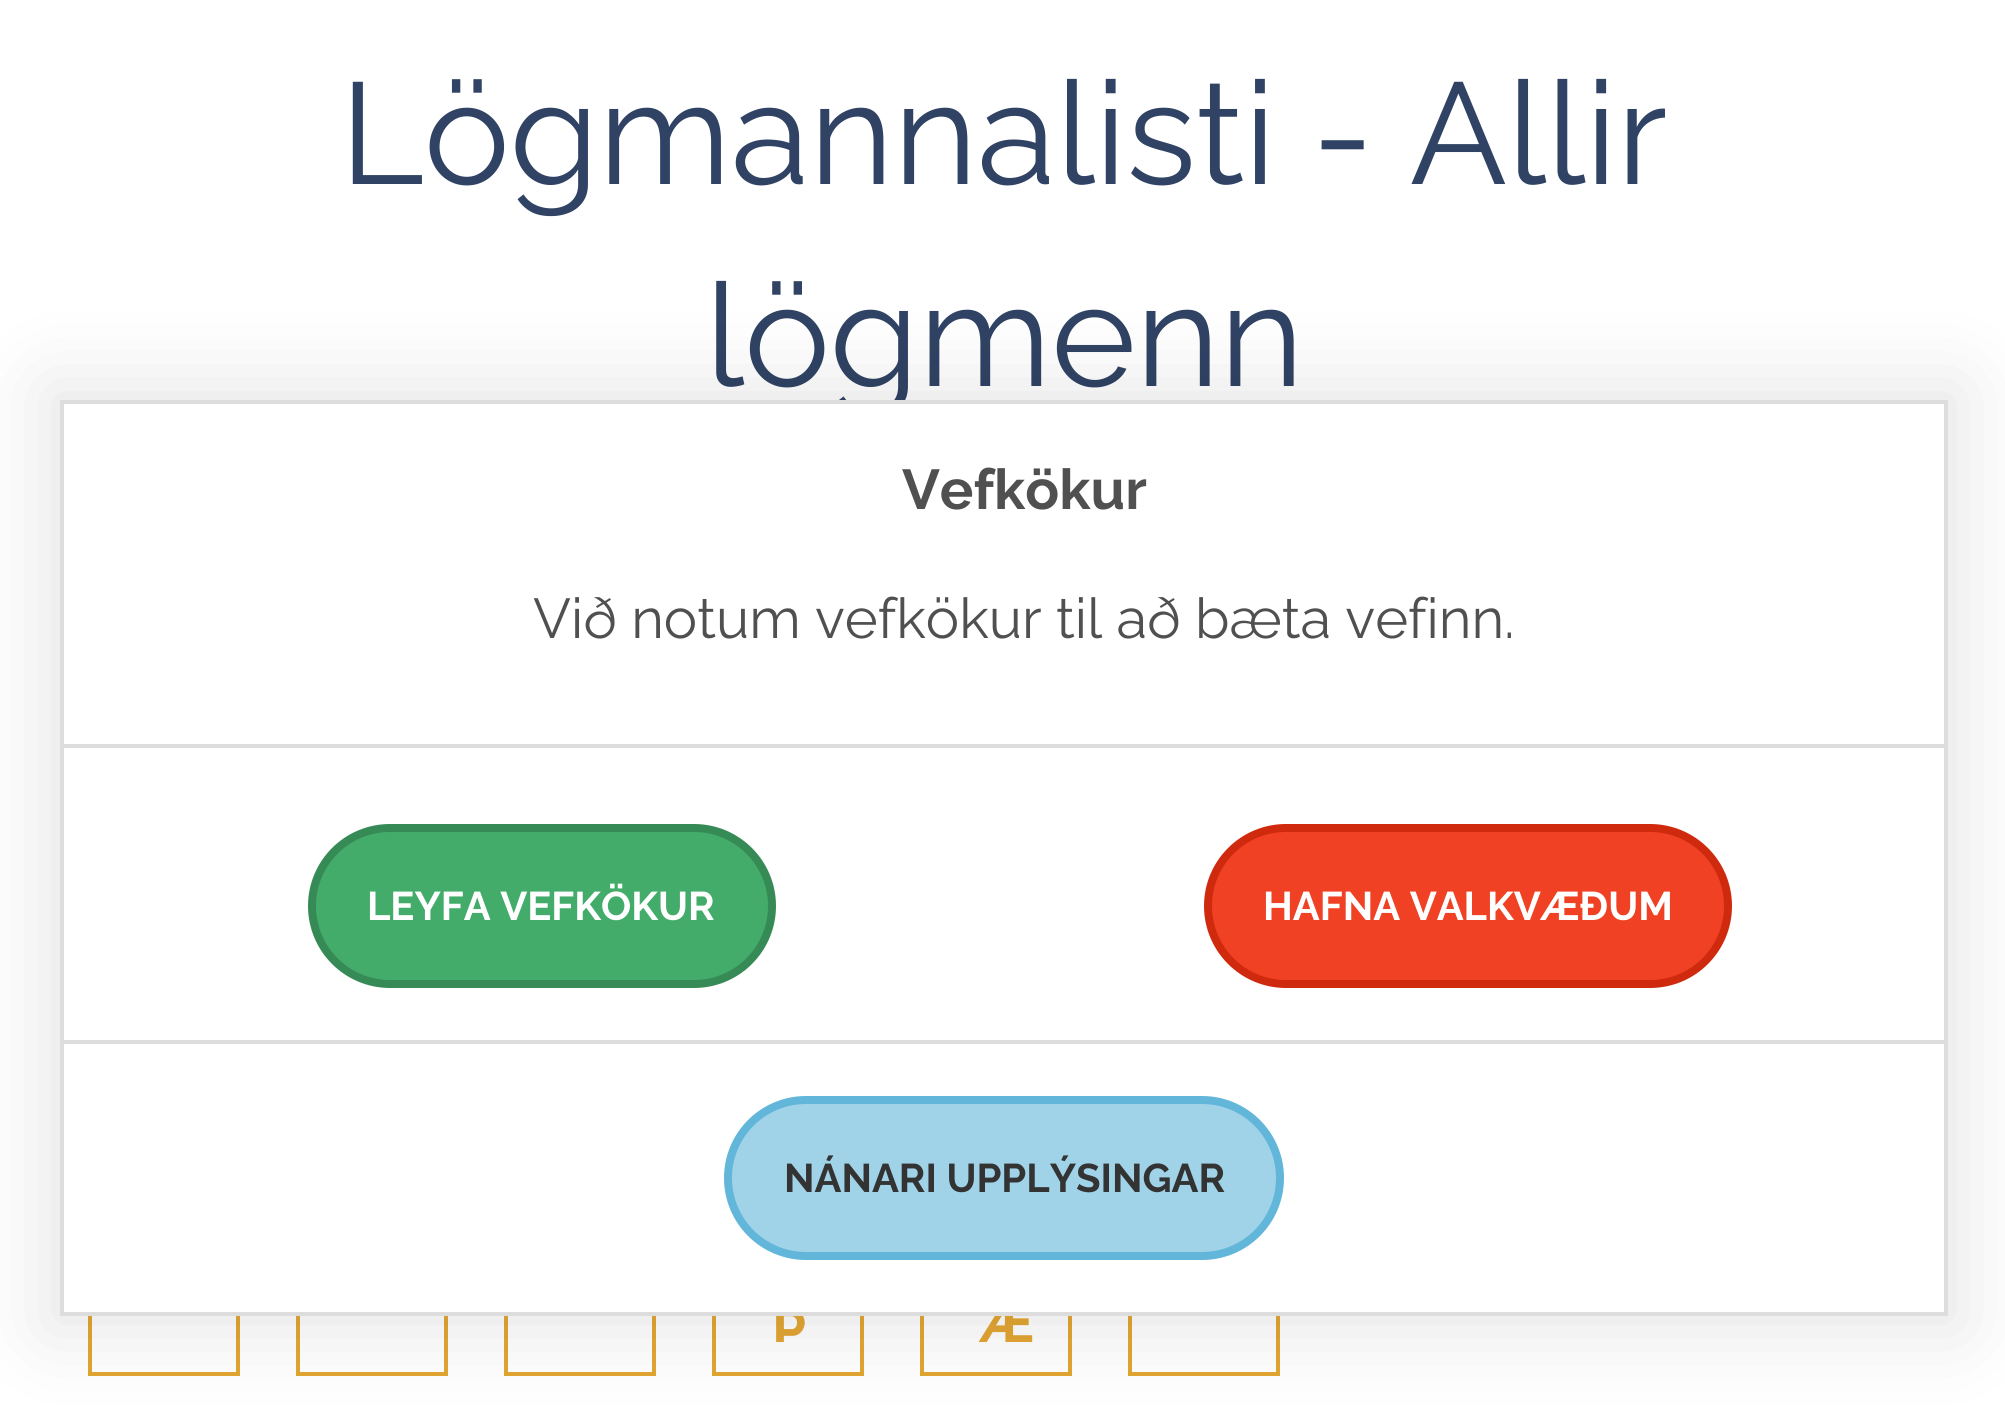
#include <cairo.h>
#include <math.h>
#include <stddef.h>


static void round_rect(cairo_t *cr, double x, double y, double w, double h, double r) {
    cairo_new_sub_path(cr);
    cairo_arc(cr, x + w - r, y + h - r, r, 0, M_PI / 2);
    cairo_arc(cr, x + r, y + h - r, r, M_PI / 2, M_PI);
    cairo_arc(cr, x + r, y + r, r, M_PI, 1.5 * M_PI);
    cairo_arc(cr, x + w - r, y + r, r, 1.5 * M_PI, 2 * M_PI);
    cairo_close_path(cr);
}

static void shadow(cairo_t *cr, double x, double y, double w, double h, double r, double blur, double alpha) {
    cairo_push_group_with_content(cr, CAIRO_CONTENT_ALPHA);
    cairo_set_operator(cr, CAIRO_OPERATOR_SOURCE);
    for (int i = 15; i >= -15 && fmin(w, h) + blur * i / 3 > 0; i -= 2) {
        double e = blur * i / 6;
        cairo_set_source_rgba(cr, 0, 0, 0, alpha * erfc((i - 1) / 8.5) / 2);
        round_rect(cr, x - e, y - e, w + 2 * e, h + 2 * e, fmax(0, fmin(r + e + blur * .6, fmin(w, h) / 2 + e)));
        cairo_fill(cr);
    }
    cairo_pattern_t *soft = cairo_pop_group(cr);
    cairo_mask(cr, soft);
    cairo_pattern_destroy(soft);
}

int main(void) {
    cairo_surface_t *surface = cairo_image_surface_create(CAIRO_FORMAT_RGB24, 2005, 1413);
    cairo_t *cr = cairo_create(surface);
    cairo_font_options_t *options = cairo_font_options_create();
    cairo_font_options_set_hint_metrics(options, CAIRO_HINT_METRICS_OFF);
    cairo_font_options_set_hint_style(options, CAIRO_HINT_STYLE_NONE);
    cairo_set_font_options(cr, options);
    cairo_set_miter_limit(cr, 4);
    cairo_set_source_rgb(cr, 1, 1, 1);
    cairo_paint(cr);
    cairo_select_font_face(cr, "Raleway", CAIRO_FONT_SLANT_NORMAL, CAIRO_FONT_WEIGHT_NORMAL);
    cairo_set_font_size(cr, 144);
    cairo_set_source_rgb(cr, 0.188, 0.263, 0.392);
    cairo_move_to(cr, 340, 184);
    cairo_show_text(cr, "Lögmannalisti - Allir");
    cairo_move_to(cr, 705, 386);
    cairo_show_text(cr, "lögmenn");
    cairo_rectangle(cr, 90, 1278, 148, 96);
    cairo_set_source_rgb(cr, 0.89, 0.651, 0.2);
    cairo_set_line_width(cr, 4);
    cairo_stroke(cr);
    cairo_rectangle(cr, 298, 1278, 148, 96);
    cairo_stroke(cr);
    cairo_rectangle(cr, 506, 1278, 148, 96);
    cairo_stroke(cr);
    cairo_rectangle(cr, 714, 1278, 148, 96);
    cairo_stroke(cr);
    cairo_select_font_face(cr, "Raleway", CAIRO_FONT_SLANT_NORMAL, CAIRO_FONT_WEIGHT_BOLD);
    cairo_set_font_size(cr, 56);
    cairo_move_to(cr, 772, 1342);
    cairo_show_text(cr, "Þ");
    cairo_rectangle(cr, 922, 1278, 148, 96);
    cairo_stroke(cr);
    cairo_move_to(cr, 980, 1342);
    cairo_show_text(cr, "Æ");
    cairo_rectangle(cr, 1130, 1278, 148, 96);
    cairo_stroke(cr);
    cairo_set_source_rgb(cr, 0, 0, 0);
    shadow(cr, 44, 384, 1920, 948, 0, 40, 0.1);
    cairo_set_source_rgb(cr, 1, 1, 1);
    cairo_rectangle(cr, 62, 402, 1884, 912);
    cairo_fill_preserve(cr);
    cairo_set_source_rgb(cr, 0.867, 0.867, 0.867);
    cairo_stroke(cr);
    cairo_set_source_rgb(cr, 0.314, 0.314, 0.314);
    cairo_move_to(cr, 902, 509);
    cairo_show_text(cr, "Vefkökur");
    cairo_select_font_face(cr, "Raleway", CAIRO_FONT_SLANT_NORMAL, CAIRO_FONT_WEIGHT_NORMAL);
    cairo_move_to(cr, 533, 638);
    cairo_show_text(cr, "Við notum vefkökur til að bæta vefinn.");
    cairo_set_source_rgb(cr, 0.867, 0.867, 0.867);
    cairo_rectangle(cr, 64, 744, 1880, 4);
    cairo_fill(cr);
    cairo_set_source_rgb(cr, 0.263, 0.675, 0.416);
    round_rect(cr, 312, 828, 460, 156, 78);
    cairo_fill_preserve(cr);
    cairo_set_source_rgb(cr, 0.212, 0.541, 0.333);
    cairo_set_line_width(cr, 8);
    cairo_stroke(cr);
    cairo_select_font_face(cr, "Raleway", CAIRO_FONT_SLANT_NORMAL, CAIRO_FONT_WEIGHT_BOLD);
    cairo_set_font_size(cr, 40);
    cairo_set_source_rgb(cr, 1, 1, 1);
    cairo_move_to(cr, 367, 920);
    cairo_show_text(cr, "LEYFA VEFKÖKUR");
    cairo_set_source_rgb(cr, 0.941, 0.255, 0.141);
    round_rect(cr, 1208, 828, 520, 156, 78);
    cairo_fill_preserve(cr);
    cairo_set_source_rgb(cr, 0.812, 0.165, 0.055);
    cairo_stroke(cr);
    cairo_set_source_rgb(cr, 1, 1, 1);
    cairo_move_to(cr, 1263, 920);
    cairo_show_text(cr, "HAFNA VALKVÆÐUM");
    cairo_set_source_rgb(cr, 0.867, 0.867, 0.867);
    cairo_rectangle(cr, 64, 1040, 1880, 4);
    cairo_fill(cr);
    cairo_set_source_rgb(cr, 0.627, 0.827, 0.91);
    round_rect(cr, 728, 1100, 552, 156, 78);
    cairo_fill_preserve(cr);
    cairo_set_source_rgb(cr, 0.38, 0.714, 0.851);
    cairo_stroke(cr);
    cairo_set_source_rgb(cr, 0.2, 0.2, 0.2);
    cairo_move_to(cr, 784, 1192);
    cairo_show_text(cr, "NÁNARI UPPLÝSINGAR");
    cairo_surface_write_to_png(surface, "page.png");
    cairo_font_options_destroy(options);
    cairo_destroy(cr);
    cairo_surface_destroy(surface);
    return 0;
}
